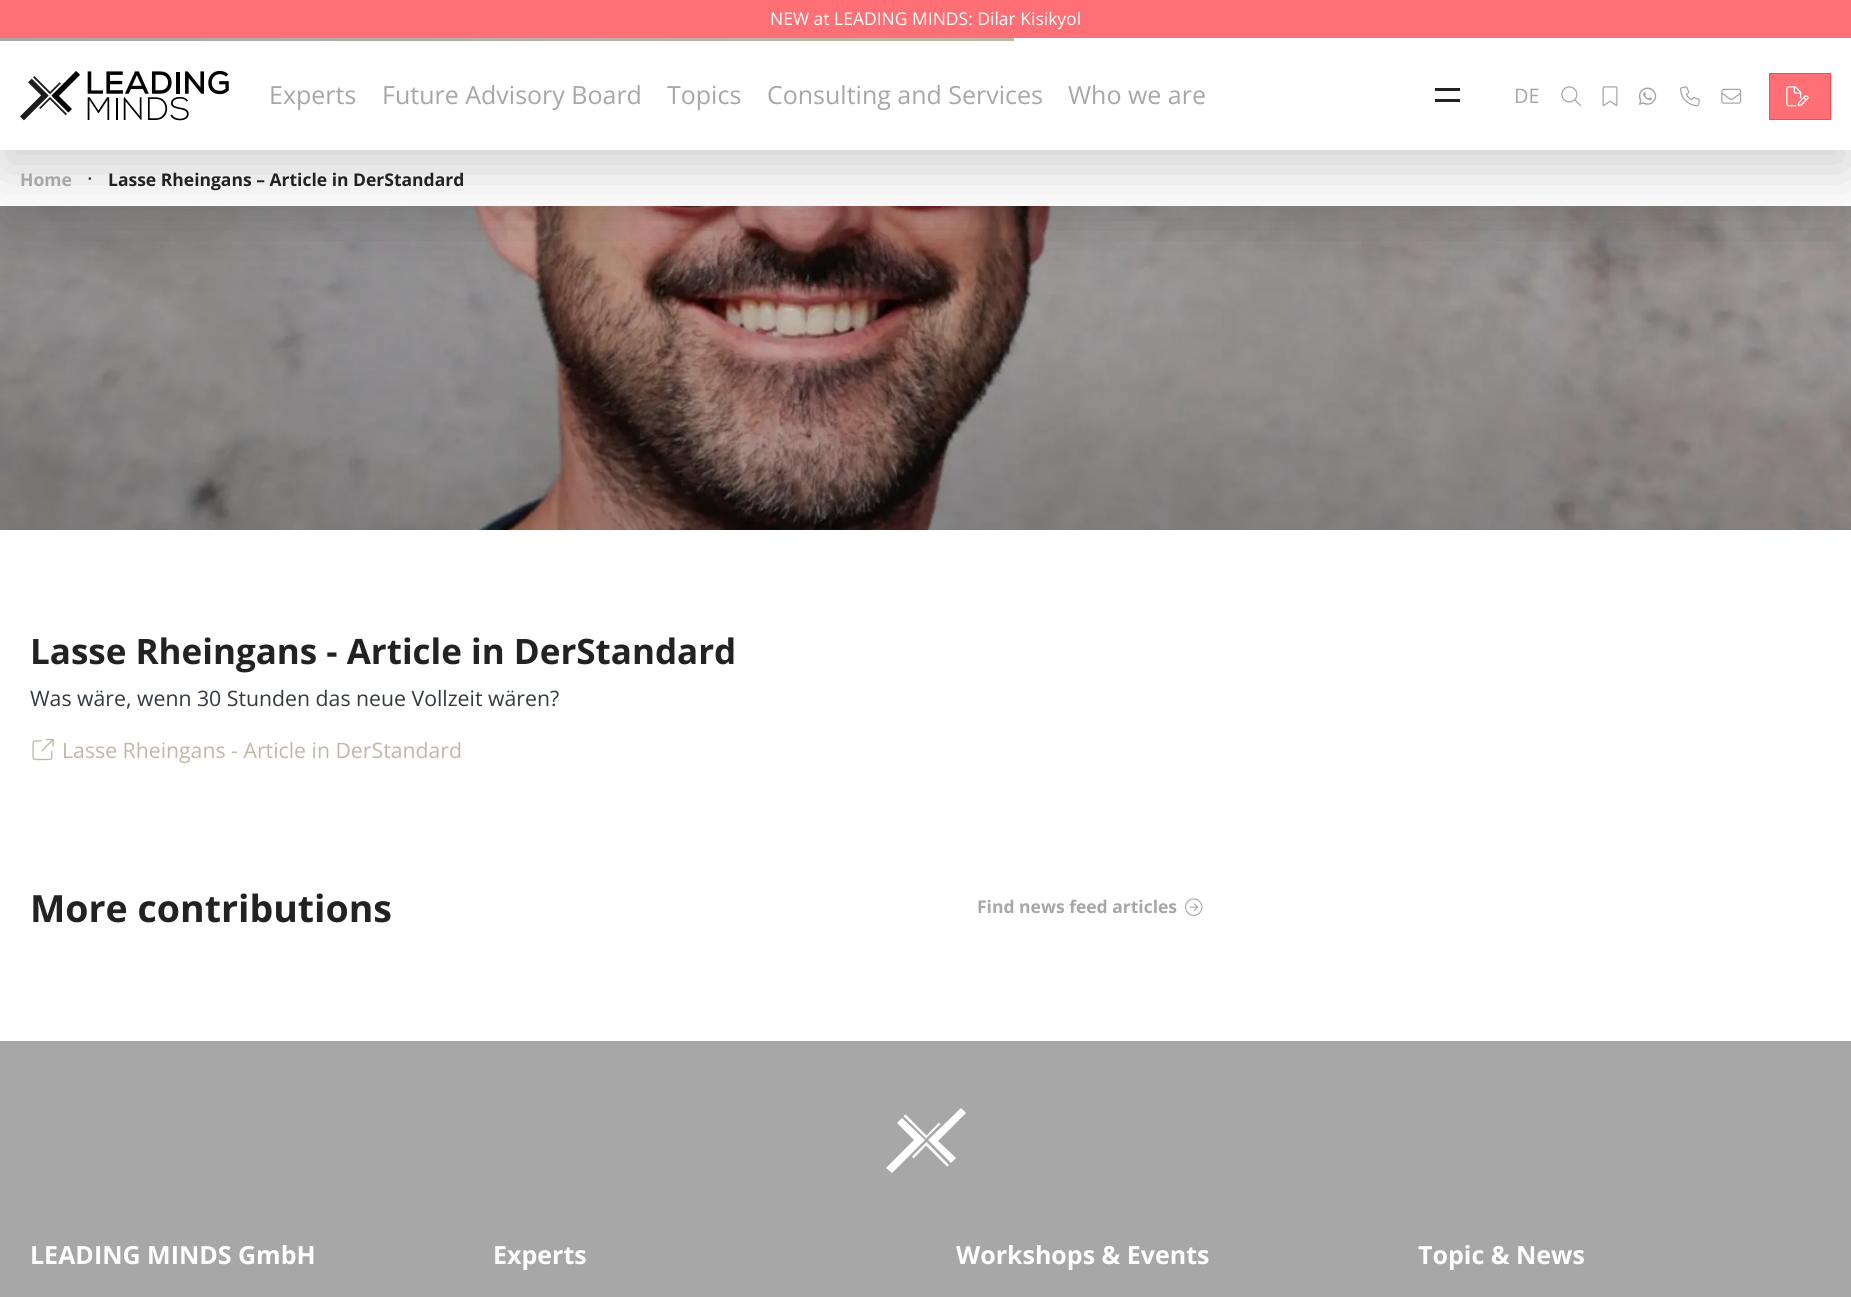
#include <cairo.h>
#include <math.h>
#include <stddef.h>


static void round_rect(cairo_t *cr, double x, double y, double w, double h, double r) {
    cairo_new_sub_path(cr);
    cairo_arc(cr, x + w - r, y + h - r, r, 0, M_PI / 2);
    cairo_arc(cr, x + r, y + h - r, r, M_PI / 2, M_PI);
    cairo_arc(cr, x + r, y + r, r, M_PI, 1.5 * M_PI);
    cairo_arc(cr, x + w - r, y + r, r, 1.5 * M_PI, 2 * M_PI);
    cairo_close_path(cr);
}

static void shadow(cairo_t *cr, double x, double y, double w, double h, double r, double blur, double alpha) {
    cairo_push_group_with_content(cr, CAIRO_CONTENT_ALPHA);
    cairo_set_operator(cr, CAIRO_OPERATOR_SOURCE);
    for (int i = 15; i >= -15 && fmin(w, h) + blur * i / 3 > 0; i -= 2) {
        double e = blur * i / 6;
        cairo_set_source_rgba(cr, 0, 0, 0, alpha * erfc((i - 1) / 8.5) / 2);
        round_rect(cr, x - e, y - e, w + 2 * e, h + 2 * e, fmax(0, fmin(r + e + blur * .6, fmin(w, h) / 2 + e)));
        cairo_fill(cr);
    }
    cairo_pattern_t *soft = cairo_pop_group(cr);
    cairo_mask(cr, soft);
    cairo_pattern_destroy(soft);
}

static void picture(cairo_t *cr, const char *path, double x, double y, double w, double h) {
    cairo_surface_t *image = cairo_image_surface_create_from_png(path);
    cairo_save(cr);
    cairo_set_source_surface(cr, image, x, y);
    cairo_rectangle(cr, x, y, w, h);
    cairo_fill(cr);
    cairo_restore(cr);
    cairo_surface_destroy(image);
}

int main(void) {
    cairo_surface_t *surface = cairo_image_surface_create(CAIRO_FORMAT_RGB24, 1851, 1297);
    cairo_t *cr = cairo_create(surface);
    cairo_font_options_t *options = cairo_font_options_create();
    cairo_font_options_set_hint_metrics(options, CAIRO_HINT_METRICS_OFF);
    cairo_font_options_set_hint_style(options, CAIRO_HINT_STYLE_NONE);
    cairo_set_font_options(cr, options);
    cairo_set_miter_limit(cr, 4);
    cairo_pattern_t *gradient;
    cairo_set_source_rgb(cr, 0.655, 0.655, 0.655);
    cairo_paint(cr);
    picture(cr, "img8.png", 0, 206, 1851, 324);
    cairo_set_source_rgb(cr, 0, 0, 0);
    shadow(cr, 0, 170, 1851, 56, 0, 30, 0.18);
    cairo_set_source_rgb(cr, 1, 1, 1);
    cairo_rectangle(cr, 0, 150, 1851, 56);
    cairo_fill(cr);
    cairo_set_source_rgb(cr, 0, 0, 0);
    shadow(cr, 0, 20, 1851, 150, 0, 30, 0.18);
    cairo_set_source_rgb(cr, 1, 1, 1);
    cairo_rectangle(cr, 0, 38, 1851, 112);
    cairo_fill(cr);
    cairo_set_source_rgb(cr, 0.996, 0.439, 0.459);
    cairo_rectangle(cr, 0, 0, 1851, 38);
    cairo_fill(cr);
    cairo_select_font_face(cr, "Open Sans", CAIRO_FONT_SLANT_NORMAL, CAIRO_FONT_WEIGHT_NORMAL);
    cairo_set_font_size(cr, 17.5);
    cairo_set_source_rgb(cr, 1, 1, 1);
    cairo_move_to(cr, 770, 25);
    cairo_show_text(cr, "NEW at LEADING MINDS: Dilar Kisikyol");
    gradient = cairo_pattern_create_linear(0, 39, 1014, 39);
    cairo_pattern_add_color_stop_rgba(gradient, 0, 0.655, 0.655, 0.655, 1);
    cairo_pattern_add_color_stop_rgba(gradient, 1, 0.761, 0.718, 0.651, 1);
    cairo_set_source(cr, gradient);
    cairo_pattern_destroy(gradient);
    cairo_rectangle(cr, 0, 38, 1014, 3);
    cairo_fill(cr);
    picture(cr, "img1.png", 20, 70, 209, 51);
    cairo_set_font_size(cr, 25);
    cairo_set_source_rgb(cr, 0.655, 0.655, 0.655);
    cairo_move_to(cr, 269, 104);
    cairo_show_text(cr, "Experts");
    cairo_move_to(cr, 382, 104);
    cairo_show_text(cr, "Future Advisory Board");
    cairo_move_to(cr, 667, 104);
    cairo_show_text(cr, "Topics");
    cairo_move_to(cr, 767, 104);
    cairo_show_text(cr, "Consulting and Services");
    cairo_move_to(cr, 1068, 104);
    cairo_show_text(cr, "Who we are");
    cairo_set_source_rgb(cr, 0.133, 0.133, 0.133);
    cairo_rectangle(cr, 1435, 88, 25, 3);
    cairo_fill(cr);
    cairo_rectangle(cr, 1435, 99, 25, 3);
    cairo_fill(cr);
    cairo_set_font_size(cr, 20);
    cairo_set_source_rgb(cr, 0.655, 0.655, 0.655);
    cairo_move_to(cr, 1514, 103);
    cairo_show_text(cr, "DE");
    picture(cr, "img2.png", 1561, 86, 21, 21);
    picture(cr, "img3.png", 1602, 86, 16, 21);
    picture(cr, "img4.png", 1638, 87, 19, 18);
    picture(cr, "img5.png", 1680, 86, 20, 21);
    picture(cr, "img6.png", 1721, 88, 21, 16);
    cairo_set_source_rgb(cr, 0.996, 0.439, 0.459);
    cairo_rectangle(cr, 1769.5, 73.5, 61, 46);
    cairo_fill_preserve(cr);
    cairo_set_source_rgb(cr, 0.996, 0.29, 0.314);
    cairo_set_line_width(cr, 1);
    cairo_stroke(cr);
    picture(cr, "img7.png", 1786, 86, 23, 21);
    cairo_select_font_face(cr, "Open Sans", CAIRO_FONT_SLANT_NORMAL, CAIRO_FONT_WEIGHT_BOLD);
    cairo_set_font_size(cr, 17.5);
    cairo_set_source_rgb(cr, 0.655, 0.655, 0.655);
    cairo_move_to(cr, 20, 186);
    cairo_show_text(cr, "Home");
    cairo_select_font_face(cr, "Open Sans", CAIRO_FONT_SLANT_NORMAL, CAIRO_FONT_WEIGHT_NORMAL);
    cairo_set_font_size(cr, 21.25);
    cairo_set_source_rgb(cr, 0.204, 0.227, 0.251);
    cairo_move_to(cr, 87, 186);
    cairo_show_text(cr, "·");
    cairo_select_font_face(cr, "Open Sans", CAIRO_FONT_SLANT_NORMAL, CAIRO_FONT_WEIGHT_BOLD);
    cairo_set_font_size(cr, 17.5);
    cairo_set_source_rgb(cr, 0.133, 0.133, 0.133);
    cairo_move_to(cr, 108, 186);
    cairo_show_text(cr, "Lasse Rheingans – Article in DerStandard");
    cairo_set_source_rgb(cr, 1, 1, 1);
    cairo_rectangle(cr, 0, 530, 1851, 511);
    cairo_fill(cr);
    cairo_set_font_size(cr, 35);
    cairo_set_source_rgb(cr, 0.133, 0.133, 0.133);
    cairo_move_to(cr, 30, 664);
    cairo_show_text(cr, "Lasse Rheingans - Article in DerStandard");
    cairo_select_font_face(cr, "Open Sans", CAIRO_FONT_SLANT_NORMAL, CAIRO_FONT_WEIGHT_NORMAL);
    cairo_set_font_size(cr, 21.25);
    cairo_set_source_rgb(cr, 0.204, 0.227, 0.251);
    cairo_move_to(cr, 30, 706);
    cairo_show_text(cr, "Was wäre, wenn 30 Stunden das neue Vollzeit wären?");
    picture(cr, "img9.png", 32, 738, 22, 23);
    cairo_set_source_rgb(cr, 0.761, 0.718, 0.651);
    cairo_move_to(cr, 62, 758);
    cairo_show_text(cr, "Lasse Rheingans - Article in DerStandard");
    cairo_select_font_face(cr, "Open Sans", CAIRO_FONT_SLANT_NORMAL, CAIRO_FONT_WEIGHT_BOLD);
    cairo_set_font_size(cr, 37.5);
    cairo_set_source_rgb(cr, 0.133, 0.133, 0.133);
    cairo_move_to(cr, 30, 922);
    cairo_show_text(cr, "More contributions");
    cairo_set_font_size(cr, 17.5);
    cairo_set_source_rgb(cr, 0.655, 0.655, 0.655);
    cairo_move_to(cr, 977, 913);
    cairo_show_text(cr, "Find news feed articles");
    picture(cr, "img10.png", 1185, 898, 18, 18);
    cairo_set_source_rgb(cr, 1, 1, 1);
    cairo_new_path(cr);
    cairo_move_to(cr, 886, 1168);
    cairo_line_to(cr, 914, 1140);
    cairo_line_to(cr, 897, 1123);
    cairo_line_to(cr, 902, 1118);
    cairo_line_to(cr, 925, 1140);
    cairo_line_to(cr, 892, 1173);
    cairo_close_path(cr);
    cairo_fill(cr);
    cairo_new_path(cr);
    cairo_move_to(cr, 905.5, 1114.5);
    cairo_line_to(cr, 926.5, 1135.5);
    cairo_line_to(cr, 939, 1122.5);
    cairo_line_to(cr, 940.5, 1124);
    cairo_line_to(cr, 926, 1138.5);
    cairo_line_to(cr, 903.5, 1116);
    cairo_close_path(cr);
    cairo_fill(cr);
    cairo_new_path(cr);
    cairo_move_to(cr, 966, 1113);
    cairo_line_to(cr, 938, 1141);
    cairo_line_to(cr, 956, 1158);
    cairo_line_to(cr, 951, 1163);
    cairo_line_to(cr, 928, 1140);
    cairo_line_to(cr, 961, 1108);
    cairo_close_path(cr);
    cairo_fill(cr);
    cairo_new_path(cr);
    cairo_move_to(cr, 947, 1166.5);
    cairo_line_to(cr, 926, 1145.5);
    cairo_line_to(cr, 913.5, 1158.5);
    cairo_line_to(cr, 912, 1156.5);
    cairo_line_to(cr, 926.5, 1142);
    cairo_line_to(cr, 949, 1165);
    cairo_close_path(cr);
    cairo_fill(cr);
    cairo_set_font_size(cr, 25);
    cairo_move_to(cr, 30, 1264);
    cairo_show_text(cr, "LEADING MINDS GmbH");
    cairo_move_to(cr, 493, 1264);
    cairo_show_text(cr, "Experts");
    cairo_move_to(cr, 956, 1264);
    cairo_show_text(cr, "Workshops & Events");
    cairo_move_to(cr, 1418, 1264);
    cairo_show_text(cr, "Topic & News");
    cairo_surface_write_to_png(surface, "page.png");
    cairo_font_options_destroy(options);
    cairo_destroy(cr);
    cairo_surface_destroy(surface);
    return 0;
}
